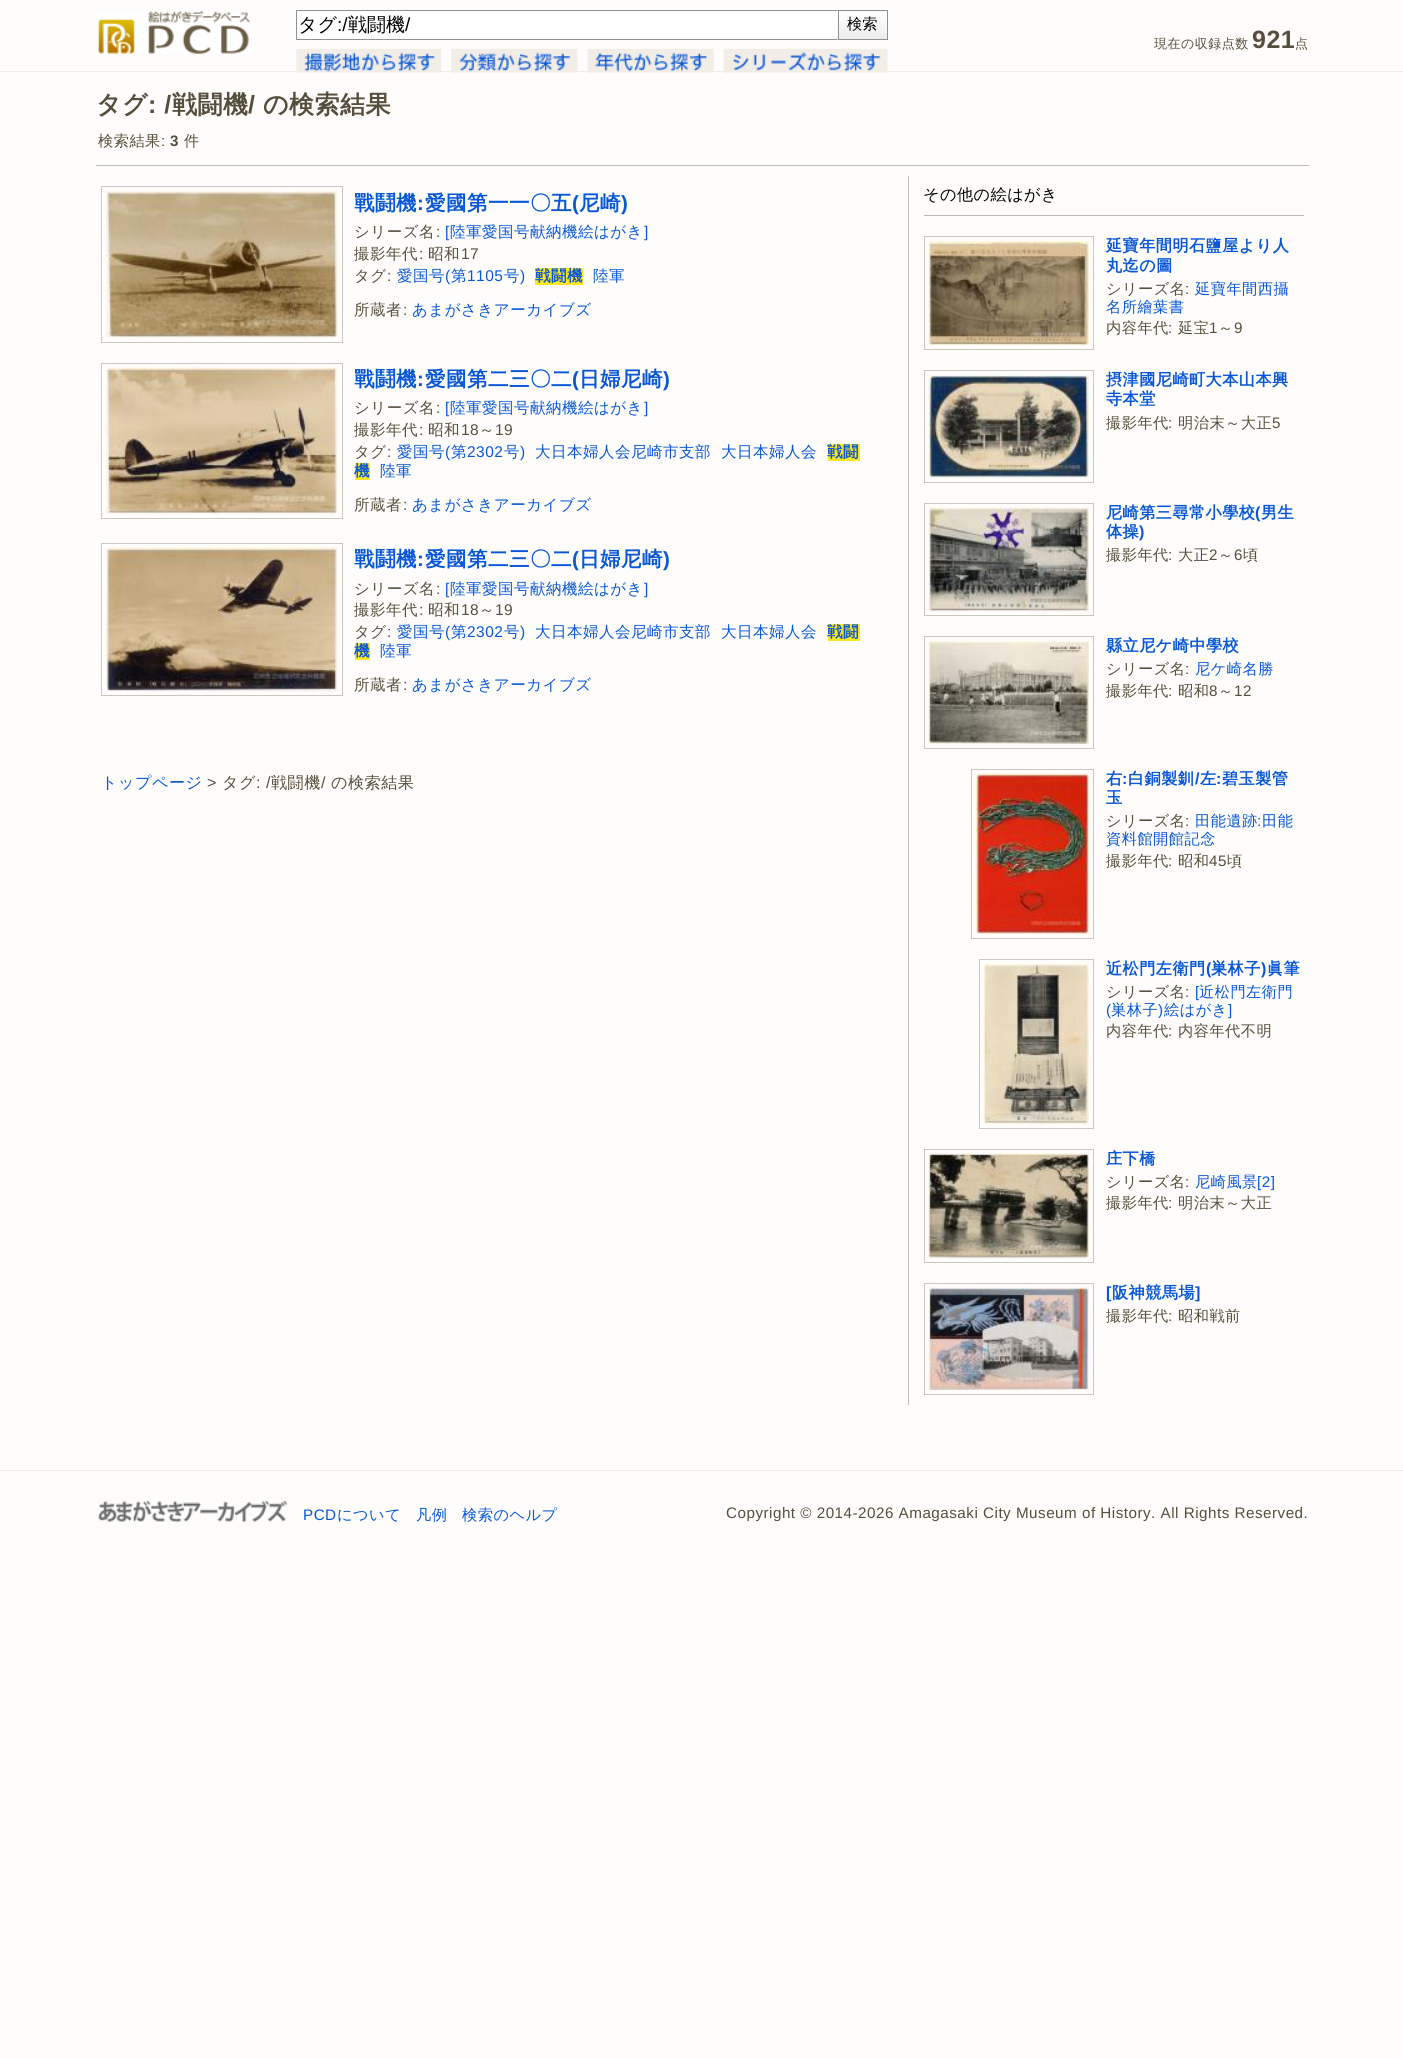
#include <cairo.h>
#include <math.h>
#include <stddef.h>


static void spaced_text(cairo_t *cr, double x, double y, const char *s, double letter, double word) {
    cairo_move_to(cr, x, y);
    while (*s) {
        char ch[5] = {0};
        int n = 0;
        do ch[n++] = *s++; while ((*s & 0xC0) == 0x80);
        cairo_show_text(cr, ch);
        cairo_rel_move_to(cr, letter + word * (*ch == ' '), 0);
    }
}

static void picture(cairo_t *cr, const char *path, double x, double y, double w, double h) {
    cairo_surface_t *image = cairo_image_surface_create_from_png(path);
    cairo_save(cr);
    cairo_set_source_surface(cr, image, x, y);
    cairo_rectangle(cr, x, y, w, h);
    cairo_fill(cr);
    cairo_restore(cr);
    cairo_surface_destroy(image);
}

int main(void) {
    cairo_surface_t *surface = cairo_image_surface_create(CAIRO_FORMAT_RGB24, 1403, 2058);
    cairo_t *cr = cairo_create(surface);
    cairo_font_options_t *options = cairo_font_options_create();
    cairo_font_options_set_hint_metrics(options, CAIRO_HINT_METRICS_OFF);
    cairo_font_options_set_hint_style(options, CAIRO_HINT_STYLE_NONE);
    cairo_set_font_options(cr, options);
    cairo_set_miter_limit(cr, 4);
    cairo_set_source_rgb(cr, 0.996, 0.992, 0.984);
    cairo_paint(cr);
    cairo_set_source_rgb(cr, 0.949, 0.929, 0.906);
    cairo_rectangle(cr, 0, 71, 1403, 1);
    cairo_fill(cr);
    picture(cr, "img1.png", 97, 10, 153, 44);
    cairo_set_source_rgb(cr, 1, 1, 1);
    cairo_rectangle(cr, 297, 11, 541, 28);
    cairo_fill(cr);
    cairo_set_source_rgb(cr, 0.569, 0.569, 0.569);
    cairo_rectangle(cr, 296, 10, 542, 1);
    cairo_fill(cr);
    cairo_rectangle(cr, 296, 39, 542, 1);
    cairo_fill(cr);
    cairo_rectangle(cr, 296, 10, 1, 30);
    cairo_fill(cr);
    cairo_select_font_face(cr, "WenQuanYi Zen Hei Medium", CAIRO_FONT_SLANT_NORMAL, CAIRO_FONT_WEIGHT_NORMAL);
    cairo_set_font_size(cr, 19);
    cairo_set_source_rgb(cr, 0, 0, 0);
    cairo_move_to(cr, 298, 31);
    cairo_show_text(cr, "タグ");
    cairo_select_font_face(cr, "Liberation Sans", CAIRO_FONT_SLANT_NORMAL, CAIRO_FONT_WEIGHT_NORMAL);
    cairo_move_to(cr, 337, 31);
    cairo_show_text(cr, ":/");
    cairo_select_font_face(cr, "WenQuanYi Zen Hei Medium", CAIRO_FONT_SLANT_NORMAL, CAIRO_FONT_WEIGHT_NORMAL);
    cairo_move_to(cr, 348, 31);
    cairo_show_text(cr, "戦闘機");
    cairo_select_font_face(cr, "Liberation Sans", CAIRO_FONT_SLANT_NORMAL, CAIRO_FONT_WEIGHT_NORMAL);
    cairo_move_to(cr, 405, 31);
    cairo_show_text(cr, "/");
    picture(cr, "img2.png", 837, 10, 50, 30);
    cairo_rectangle(cr, 838.5, 10.5, 49, 29);
    cairo_set_source_rgb(cr, 0.569, 0.569, 0.569);
    cairo_set_line_width(cr, 1);
    cairo_stroke(cr);
    cairo_select_font_face(cr, "WenQuanYi Zen Hei Medium", CAIRO_FONT_SLANT_NORMAL, CAIRO_FONT_WEIGHT_NORMAL);
    cairo_set_font_size(cr, 15.2);
    cairo_set_source_rgb(cr, 0, 0, 0);
    cairo_move_to(cr, 847, 29);
    cairo_show_text(cr, "検索");
    picture(cr, "img3.png", 296, 48, 146, 25);
    picture(cr, "img4.png", 451, 48, 127, 25);
    picture(cr, "img5.png", 587, 48, 127, 25);
    picture(cr, "img6.png", 723, 48, 165, 25);
    cairo_set_font_size(cr, 13);
    cairo_set_source_rgb(cr, 0.337, 0.306, 0.235);
    spaced_text(cr, 1154, 48, "現在の収録点数", 0.5, 0);
    cairo_select_font_face(cr, "Liberation Sans", CAIRO_FONT_SLANT_NORMAL, CAIRO_FONT_WEIGHT_BOLD);
    cairo_set_font_size(cr, 25);
    spaced_text(cr, 1252, 48, "921", 0.5, 0);
    cairo_select_font_face(cr, "WenQuanYi Zen Hei Medium", CAIRO_FONT_SLANT_NORMAL, CAIRO_FONT_WEIGHT_NORMAL);
    cairo_set_font_size(cr, 13);
    spaced_text(cr, 1295, 48, "点", 0.5, 0);
    cairo_set_source_rgb(cr, 0.749, 0.729, 0.71);
    cairo_rectangle(cr, 96, 165, 1213, 1);
    cairo_fill(cr);
    cairo_select_font_face(cr, "WenQuanYi Zen Hei", CAIRO_FONT_SLANT_NORMAL, CAIRO_FONT_WEIGHT_BOLD);
    cairo_set_font_size(cr, 25);
    cairo_set_source_rgb(cr, 0.337, 0.306, 0.235);
    spaced_text(cr, 96, 113, "タグ", 0.5, 0);
    cairo_select_font_face(cr, "Liberation Sans", CAIRO_FONT_SLANT_NORMAL, CAIRO_FONT_WEIGHT_BOLD);
    spaced_text(cr, 148, 113, ": /", 0.5, 0);
    cairo_select_font_face(cr, "WenQuanYi Zen Hei", CAIRO_FONT_SLANT_NORMAL, CAIRO_FONT_WEIGHT_BOLD);
    spaced_text(cr, 172, 113, "戦闘機", 0.5, 0);
    cairo_select_font_face(cr, "Liberation Sans", CAIRO_FONT_SLANT_NORMAL, CAIRO_FONT_WEIGHT_BOLD);
    spaced_text(cr, 248, 113, "/", 0.5, 0);
    cairo_select_font_face(cr, "WenQuanYi Zen Hei", CAIRO_FONT_SLANT_NORMAL, CAIRO_FONT_WEIGHT_BOLD);
    spaced_text(cr, 263, 113, "の検索結果", 0.5, 0);
    cairo_select_font_face(cr, "WenQuanYi Zen Hei Medium", CAIRO_FONT_SLANT_NORMAL, CAIRO_FONT_WEIGHT_NORMAL);
    cairo_set_font_size(cr, 15.2);
    spaced_text(cr, 98, 146, "検索結果", 0.5, 0);
    cairo_select_font_face(cr, "Liberation Sans", CAIRO_FONT_SLANT_NORMAL, CAIRO_FONT_WEIGHT_NORMAL);
    spaced_text(cr, 161, 146, ":", 0.5, 0);
    cairo_select_font_face(cr, "Liberation Sans", CAIRO_FONT_SLANT_NORMAL, CAIRO_FONT_WEIGHT_BOLD);
    spaced_text(cr, 170, 146, "3", 0.5, 0);
    cairo_select_font_face(cr, "WenQuanYi Zen Hei Medium", CAIRO_FONT_SLANT_NORMAL, CAIRO_FONT_WEIGHT_NORMAL);
    spaced_text(cr, 184, 146, "件", 0.5, 0);
    cairo_rectangle(cr, 101.5, 186.5, 241, 156);
    cairo_set_source_rgb(cr, 0.8, 0.776, 0.753);
    cairo_stroke(cr);
    picture(cr, "img7.png", 106, 191, 232, 147);
    cairo_select_font_face(cr, "WenQuanYi Zen Hei", CAIRO_FONT_SLANT_NORMAL, CAIRO_FONT_WEIGHT_BOLD);
    cairo_set_font_size(cr, 20.5);
    cairo_set_source_rgb(cr, 0.035, 0.341, 0.847);
    spaced_text(cr, 354, 210, "戰鬪機", 0.5, 0);
    cairo_select_font_face(cr, "Liberation Sans", CAIRO_FONT_SLANT_NORMAL, CAIRO_FONT_WEIGHT_BOLD);
    spaced_text(cr, 417, 210, ":", 0.5, 0);
    cairo_select_font_face(cr, "WenQuanYi Zen Hei", CAIRO_FONT_SLANT_NORMAL, CAIRO_FONT_WEIGHT_BOLD);
    spaced_text(cr, 425, 210, "愛國第一一〇五", 0.5, 0);
    cairo_select_font_face(cr, "Liberation Sans", CAIRO_FONT_SLANT_NORMAL, CAIRO_FONT_WEIGHT_BOLD);
    spaced_text(cr, 572, 210, "(", 0.5, 0);
    cairo_select_font_face(cr, "WenQuanYi Zen Hei", CAIRO_FONT_SLANT_NORMAL, CAIRO_FONT_WEIGHT_BOLD);
    spaced_text(cr, 579, 210, "尼崎", 0.5, 0);
    cairo_select_font_face(cr, "Liberation Sans", CAIRO_FONT_SLANT_NORMAL, CAIRO_FONT_WEIGHT_BOLD);
    spaced_text(cr, 621, 210, ")", 0.5, 0);
    cairo_select_font_face(cr, "WenQuanYi Zen Hei Medium", CAIRO_FONT_SLANT_NORMAL, CAIRO_FONT_WEIGHT_NORMAL);
    cairo_set_font_size(cr, 15.5);
    cairo_set_source_rgb(cr, 0.337, 0.306, 0.235);
    spaced_text(cr, 354, 237, "シリーズ名", 0.5, 0);
    cairo_select_font_face(cr, "Liberation Sans", CAIRO_FONT_SLANT_NORMAL, CAIRO_FONT_WEIGHT_NORMAL);
    spaced_text(cr, 436, 237, ":", 0.5, 0);
    cairo_set_source_rgb(cr, 0.035, 0.341, 0.847);
    spaced_text(cr, 445, 237, "[", 0.5, 0);
    cairo_select_font_face(cr, "WenQuanYi Zen Hei Medium", CAIRO_FONT_SLANT_NORMAL, CAIRO_FONT_WEIGHT_NORMAL);
    spaced_text(cr, 450, 237, "陸軍愛国号献納機絵はがき", 0.5, 0);
    cairo_select_font_face(cr, "Liberation Sans", CAIRO_FONT_SLANT_NORMAL, CAIRO_FONT_WEIGHT_NORMAL);
    spaced_text(cr, 644, 237, "]", 0.5, 0);
    cairo_select_font_face(cr, "WenQuanYi Zen Hei Medium", CAIRO_FONT_SLANT_NORMAL, CAIRO_FONT_WEIGHT_NORMAL);
    cairo_set_source_rgb(cr, 0.337, 0.306, 0.235);
    spaced_text(cr, 354, 259, "撮影年代", 0.5, 0);
    cairo_select_font_face(cr, "Liberation Sans", CAIRO_FONT_SLANT_NORMAL, CAIRO_FONT_WEIGHT_NORMAL);
    spaced_text(cr, 419, 259, ":", 0.5, 0);
    cairo_select_font_face(cr, "WenQuanYi Zen Hei Medium", CAIRO_FONT_SLANT_NORMAL, CAIRO_FONT_WEIGHT_NORMAL);
    spaced_text(cr, 428, 259, "昭和", 0.5, 0);
    cairo_select_font_face(cr, "Liberation Sans", CAIRO_FONT_SLANT_NORMAL, CAIRO_FONT_WEIGHT_NORMAL);
    spaced_text(cr, 461, 259, "17", 0.5, 0);
    cairo_select_font_face(cr, "WenQuanYi Zen Hei Medium", CAIRO_FONT_SLANT_NORMAL, CAIRO_FONT_WEIGHT_NORMAL);
    spaced_text(cr, 354, 281, "タグ", 0.5, 0);
    cairo_select_font_face(cr, "Liberation Sans", CAIRO_FONT_SLANT_NORMAL, CAIRO_FONT_WEIGHT_NORMAL);
    spaced_text(cr, 387, 281, ":", 0.5, 0);
    cairo_select_font_face(cr, "WenQuanYi Zen Hei Medium", CAIRO_FONT_SLANT_NORMAL, CAIRO_FONT_WEIGHT_NORMAL);
    cairo_set_source_rgb(cr, 0.035, 0.341, 0.847);
    spaced_text(cr, 397, 281, "愛国号", 0.5, 0);
    cairo_select_font_face(cr, "Liberation Sans", CAIRO_FONT_SLANT_NORMAL, CAIRO_FONT_WEIGHT_NORMAL);
    spaced_text(cr, 445, 281, "(", 0.5, 0);
    cairo_select_font_face(cr, "WenQuanYi Zen Hei Medium", CAIRO_FONT_SLANT_NORMAL, CAIRO_FONT_WEIGHT_NORMAL);
    spaced_text(cr, 451, 281, "第", 0.5, 0);
    cairo_select_font_face(cr, "Liberation Sans", CAIRO_FONT_SLANT_NORMAL, CAIRO_FONT_WEIGHT_NORMAL);
    spaced_text(cr, 467, 281, "1105", 0.5, 0);
    cairo_select_font_face(cr, "WenQuanYi Zen Hei Medium", CAIRO_FONT_SLANT_NORMAL, CAIRO_FONT_WEIGHT_NORMAL);
    spaced_text(cr, 504, 281, "号", 0.5, 0);
    cairo_select_font_face(cr, "Liberation Sans", CAIRO_FONT_SLANT_NORMAL, CAIRO_FONT_WEIGHT_NORMAL);
    spaced_text(cr, 520, 281, ")", 0.5, 0);
    cairo_set_source_rgb(cr, 1, 0.906, 0.122);
    cairo_rectangle(cr, 535, 268, 48, 17);
    cairo_fill(cr);
    cairo_select_font_face(cr, "WenQuanYi Zen Hei", CAIRO_FONT_SLANT_NORMAL, CAIRO_FONT_WEIGHT_BOLD);
    cairo_set_source_rgb(cr, 0.035, 0.341, 0.847);
    spaced_text(cr, 535, 281, "戦闘機", 0.5, 0);
    cairo_select_font_face(cr, "WenQuanYi Zen Hei Medium", CAIRO_FONT_SLANT_NORMAL, CAIRO_FONT_WEIGHT_NORMAL);
    spaced_text(cr, 593, 281, "陸軍", 0.5, 0);
    cairo_set_source_rgb(cr, 0.337, 0.306, 0.235);
    spaced_text(cr, 354, 315, "所蔵者", 0.5, 0);
    cairo_select_font_face(cr, "Liberation Sans", CAIRO_FONT_SLANT_NORMAL, CAIRO_FONT_WEIGHT_NORMAL);
    spaced_text(cr, 403, 315, ":", 0.5, 0);
    cairo_select_font_face(cr, "WenQuanYi Zen Hei Medium", CAIRO_FONT_SLANT_NORMAL, CAIRO_FONT_WEIGHT_NORMAL);
    cairo_set_source_rgb(cr, 0.035, 0.341, 0.847);
    spaced_text(cr, 412, 315, "あまがさきアーカイブズ", 0.5, 0);
    cairo_rectangle(cr, 101.5, 363.5, 241, 155);
    cairo_set_source_rgb(cr, 0.8, 0.776, 0.753);
    cairo_stroke(cr);
    picture(cr, "img8.png", 106, 367, 232, 147);
    cairo_select_font_face(cr, "WenQuanYi Zen Hei", CAIRO_FONT_SLANT_NORMAL, CAIRO_FONT_WEIGHT_BOLD);
    cairo_set_font_size(cr, 20.5);
    cairo_set_source_rgb(cr, 0.035, 0.341, 0.847);
    spaced_text(cr, 354, 386, "戰鬪機", 0.5, 0);
    cairo_select_font_face(cr, "Liberation Sans", CAIRO_FONT_SLANT_NORMAL, CAIRO_FONT_WEIGHT_BOLD);
    spaced_text(cr, 417, 386, ":", 0.5, 0);
    cairo_select_font_face(cr, "WenQuanYi Zen Hei", CAIRO_FONT_SLANT_NORMAL, CAIRO_FONT_WEIGHT_BOLD);
    spaced_text(cr, 425, 386, "愛國第二三〇二", 0.5, 0);
    cairo_select_font_face(cr, "Liberation Sans", CAIRO_FONT_SLANT_NORMAL, CAIRO_FONT_WEIGHT_BOLD);
    spaced_text(cr, 572, 386, "(", 0.5, 0);
    cairo_select_font_face(cr, "WenQuanYi Zen Hei", CAIRO_FONT_SLANT_NORMAL, CAIRO_FONT_WEIGHT_BOLD);
    spaced_text(cr, 579, 386, "日婦尼崎", 0.5, 0);
    cairo_select_font_face(cr, "Liberation Sans", CAIRO_FONT_SLANT_NORMAL, CAIRO_FONT_WEIGHT_BOLD);
    spaced_text(cr, 663, 386, ")", 0.5, 0);
    cairo_select_font_face(cr, "WenQuanYi Zen Hei Medium", CAIRO_FONT_SLANT_NORMAL, CAIRO_FONT_WEIGHT_NORMAL);
    cairo_set_font_size(cr, 15.5);
    cairo_set_source_rgb(cr, 0.337, 0.306, 0.235);
    spaced_text(cr, 354, 413, "シリーズ名", 0.5, 0);
    cairo_select_font_face(cr, "Liberation Sans", CAIRO_FONT_SLANT_NORMAL, CAIRO_FONT_WEIGHT_NORMAL);
    spaced_text(cr, 436, 413, ":", 0.5, 0);
    cairo_set_source_rgb(cr, 0.035, 0.341, 0.847);
    spaced_text(cr, 445, 413, "[", 0.5, 0);
    cairo_select_font_face(cr, "WenQuanYi Zen Hei Medium", CAIRO_FONT_SLANT_NORMAL, CAIRO_FONT_WEIGHT_NORMAL);
    spaced_text(cr, 450, 413, "陸軍愛国号献納機絵はがき", 0.5, 0);
    cairo_select_font_face(cr, "Liberation Sans", CAIRO_FONT_SLANT_NORMAL, CAIRO_FONT_WEIGHT_NORMAL);
    spaced_text(cr, 644, 413, "]", 0.5, 0);
    cairo_select_font_face(cr, "WenQuanYi Zen Hei Medium", CAIRO_FONT_SLANT_NORMAL, CAIRO_FONT_WEIGHT_NORMAL);
    cairo_set_source_rgb(cr, 0.337, 0.306, 0.235);
    spaced_text(cr, 354, 435, "撮影年代", 0.5, 0);
    cairo_select_font_face(cr, "Liberation Sans", CAIRO_FONT_SLANT_NORMAL, CAIRO_FONT_WEIGHT_NORMAL);
    spaced_text(cr, 419, 435, ":", 0.5, 0);
    cairo_select_font_face(cr, "WenQuanYi Zen Hei Medium", CAIRO_FONT_SLANT_NORMAL, CAIRO_FONT_WEIGHT_NORMAL);
    spaced_text(cr, 428, 435, "昭和", 0.5, 0);
    cairo_select_font_face(cr, "Liberation Sans", CAIRO_FONT_SLANT_NORMAL, CAIRO_FONT_WEIGHT_NORMAL);
    spaced_text(cr, 461, 435, "18", 0.5, 0);
    cairo_select_font_face(cr, "WenQuanYi Zen Hei Medium", CAIRO_FONT_SLANT_NORMAL, CAIRO_FONT_WEIGHT_NORMAL);
    spaced_text(cr, 479, 435, "～", 0.5, 0);
    cairo_select_font_face(cr, "Liberation Sans", CAIRO_FONT_SLANT_NORMAL, CAIRO_FONT_WEIGHT_NORMAL);
    spaced_text(cr, 495, 435, "19", 0.5, 0);
    cairo_select_font_face(cr, "WenQuanYi Zen Hei Medium", CAIRO_FONT_SLANT_NORMAL, CAIRO_FONT_WEIGHT_NORMAL);
    spaced_text(cr, 354, 457, "タグ", 0.5, 0);
    cairo_select_font_face(cr, "Liberation Sans", CAIRO_FONT_SLANT_NORMAL, CAIRO_FONT_WEIGHT_NORMAL);
    spaced_text(cr, 387, 457, ":", 0.5, 0);
    cairo_select_font_face(cr, "WenQuanYi Zen Hei Medium", CAIRO_FONT_SLANT_NORMAL, CAIRO_FONT_WEIGHT_NORMAL);
    cairo_set_source_rgb(cr, 0.035, 0.341, 0.847);
    spaced_text(cr, 397, 457, "愛国号", 0.5, 0);
    cairo_select_font_face(cr, "Liberation Sans", CAIRO_FONT_SLANT_NORMAL, CAIRO_FONT_WEIGHT_NORMAL);
    spaced_text(cr, 445, 457, "(", 0.5, 0);
    cairo_select_font_face(cr, "WenQuanYi Zen Hei Medium", CAIRO_FONT_SLANT_NORMAL, CAIRO_FONT_WEIGHT_NORMAL);
    spaced_text(cr, 451, 457, "第", 0.5, 0);
    cairo_select_font_face(cr, "Liberation Sans", CAIRO_FONT_SLANT_NORMAL, CAIRO_FONT_WEIGHT_NORMAL);
    spaced_text(cr, 467, 457, "2302", 0.5, 0);
    cairo_select_font_face(cr, "WenQuanYi Zen Hei Medium", CAIRO_FONT_SLANT_NORMAL, CAIRO_FONT_WEIGHT_NORMAL);
    spaced_text(cr, 504, 457, "号", 0.5, 0);
    cairo_select_font_face(cr, "Liberation Sans", CAIRO_FONT_SLANT_NORMAL, CAIRO_FONT_WEIGHT_NORMAL);
    spaced_text(cr, 520, 457, ")", 0.5, 0);
    cairo_select_font_face(cr, "WenQuanYi Zen Hei Medium", CAIRO_FONT_SLANT_NORMAL, CAIRO_FONT_WEIGHT_NORMAL);
    spaced_text(cr, 535, 457, "大日本婦人会尼崎市支部", 0.5, 0);
    spaced_text(cr, 721, 457, "大日本婦人会", 0.5, 0);
    cairo_set_source_rgb(cr, 1, 0.906, 0.122);
    cairo_rectangle(cr, 828, 444, 32, 17);
    cairo_fill(cr);
    cairo_select_font_face(cr, "WenQuanYi Zen Hei", CAIRO_FONT_SLANT_NORMAL, CAIRO_FONT_WEIGHT_BOLD);
    cairo_set_source_rgb(cr, 0.035, 0.341, 0.847);
    spaced_text(cr, 827, 457, "戦闘", 0.5, 0);
    cairo_set_source_rgb(cr, 1, 0.906, 0.122);
    cairo_rectangle(cr, 355, 463, 15, 17);
    cairo_fill(cr);
    cairo_set_source_rgb(cr, 0.035, 0.341, 0.847);
    spaced_text(cr, 354, 476, "機", 0.5, 0);
    cairo_select_font_face(cr, "WenQuanYi Zen Hei Medium", CAIRO_FONT_SLANT_NORMAL, CAIRO_FONT_WEIGHT_NORMAL);
    spaced_text(cr, 380, 476, "陸軍", 0.5, 0);
    cairo_set_source_rgb(cr, 0.337, 0.306, 0.235);
    spaced_text(cr, 354, 510, "所蔵者", 0.5, 0);
    cairo_select_font_face(cr, "Liberation Sans", CAIRO_FONT_SLANT_NORMAL, CAIRO_FONT_WEIGHT_NORMAL);
    spaced_text(cr, 403, 510, ":", 0.5, 0);
    cairo_select_font_face(cr, "WenQuanYi Zen Hei Medium", CAIRO_FONT_SLANT_NORMAL, CAIRO_FONT_WEIGHT_NORMAL);
    cairo_set_source_rgb(cr, 0.035, 0.341, 0.847);
    spaced_text(cr, 412, 510, "あまがさきアーカイブズ", 0.5, 0);
    cairo_rectangle(cr, 101.5, 543.5, 241, 152);
    cairo_set_source_rgb(cr, 0.8, 0.776, 0.753);
    cairo_stroke(cr);
    picture(cr, "img9.png", 106, 547, 232, 145);
    cairo_select_font_face(cr, "WenQuanYi Zen Hei", CAIRO_FONT_SLANT_NORMAL, CAIRO_FONT_WEIGHT_BOLD);
    cairo_set_font_size(cr, 20.5);
    cairo_set_source_rgb(cr, 0.035, 0.341, 0.847);
    spaced_text(cr, 354, 566, "戰鬪機", 0.5, 0);
    cairo_select_font_face(cr, "Liberation Sans", CAIRO_FONT_SLANT_NORMAL, CAIRO_FONT_WEIGHT_BOLD);
    spaced_text(cr, 417, 566, ":", 0.5, 0);
    cairo_select_font_face(cr, "WenQuanYi Zen Hei", CAIRO_FONT_SLANT_NORMAL, CAIRO_FONT_WEIGHT_BOLD);
    spaced_text(cr, 425, 566, "愛國第二三〇二", 0.5, 0);
    cairo_select_font_face(cr, "Liberation Sans", CAIRO_FONT_SLANT_NORMAL, CAIRO_FONT_WEIGHT_BOLD);
    spaced_text(cr, 572, 566, "(", 0.5, 0);
    cairo_select_font_face(cr, "WenQuanYi Zen Hei", CAIRO_FONT_SLANT_NORMAL, CAIRO_FONT_WEIGHT_BOLD);
    spaced_text(cr, 579, 566, "日婦尼崎", 0.5, 0);
    cairo_select_font_face(cr, "Liberation Sans", CAIRO_FONT_SLANT_NORMAL, CAIRO_FONT_WEIGHT_BOLD);
    spaced_text(cr, 663, 566, ")", 0.5, 0);
    cairo_select_font_face(cr, "WenQuanYi Zen Hei Medium", CAIRO_FONT_SLANT_NORMAL, CAIRO_FONT_WEIGHT_NORMAL);
    cairo_set_font_size(cr, 15.5);
    cairo_set_source_rgb(cr, 0.337, 0.306, 0.235);
    spaced_text(cr, 354, 594, "シリーズ名", 0.5, 0);
    cairo_select_font_face(cr, "Liberation Sans", CAIRO_FONT_SLANT_NORMAL, CAIRO_FONT_WEIGHT_NORMAL);
    spaced_text(cr, 436, 594, ":", 0.5, 0);
    cairo_set_source_rgb(cr, 0.035, 0.341, 0.847);
    spaced_text(cr, 445, 594, "[", 0.5, 0);
    cairo_select_font_face(cr, "WenQuanYi Zen Hei Medium", CAIRO_FONT_SLANT_NORMAL, CAIRO_FONT_WEIGHT_NORMAL);
    spaced_text(cr, 450, 594, "陸軍愛国号献納機絵はがき", 0.5, 0);
    cairo_select_font_face(cr, "Liberation Sans", CAIRO_FONT_SLANT_NORMAL, CAIRO_FONT_WEIGHT_NORMAL);
    spaced_text(cr, 644, 594, "]", 0.5, 0);
    cairo_select_font_face(cr, "WenQuanYi Zen Hei Medium", CAIRO_FONT_SLANT_NORMAL, CAIRO_FONT_WEIGHT_NORMAL);
    cairo_set_source_rgb(cr, 0.337, 0.306, 0.235);
    spaced_text(cr, 354, 615, "撮影年代", 0.5, 0);
    cairo_select_font_face(cr, "Liberation Sans", CAIRO_FONT_SLANT_NORMAL, CAIRO_FONT_WEIGHT_NORMAL);
    spaced_text(cr, 419, 615, ":", 0.5, 0);
    cairo_select_font_face(cr, "WenQuanYi Zen Hei Medium", CAIRO_FONT_SLANT_NORMAL, CAIRO_FONT_WEIGHT_NORMAL);
    spaced_text(cr, 428, 615, "昭和", 0.5, 0);
    cairo_select_font_face(cr, "Liberation Sans", CAIRO_FONT_SLANT_NORMAL, CAIRO_FONT_WEIGHT_NORMAL);
    spaced_text(cr, 461, 615, "18", 0.5, 0);
    cairo_select_font_face(cr, "WenQuanYi Zen Hei Medium", CAIRO_FONT_SLANT_NORMAL, CAIRO_FONT_WEIGHT_NORMAL);
    spaced_text(cr, 479, 615, "～", 0.5, 0);
    cairo_select_font_face(cr, "Liberation Sans", CAIRO_FONT_SLANT_NORMAL, CAIRO_FONT_WEIGHT_NORMAL);
    spaced_text(cr, 495, 615, "19", 0.5, 0);
    cairo_select_font_face(cr, "WenQuanYi Zen Hei Medium", CAIRO_FONT_SLANT_NORMAL, CAIRO_FONT_WEIGHT_NORMAL);
    spaced_text(cr, 354, 637, "タグ", 0.5, 0);
    cairo_select_font_face(cr, "Liberation Sans", CAIRO_FONT_SLANT_NORMAL, CAIRO_FONT_WEIGHT_NORMAL);
    spaced_text(cr, 387, 637, ":", 0.5, 0);
    cairo_select_font_face(cr, "WenQuanYi Zen Hei Medium", CAIRO_FONT_SLANT_NORMAL, CAIRO_FONT_WEIGHT_NORMAL);
    cairo_set_source_rgb(cr, 0.035, 0.341, 0.847);
    spaced_text(cr, 397, 637, "愛国号", 0.5, 0);
    cairo_select_font_face(cr, "Liberation Sans", CAIRO_FONT_SLANT_NORMAL, CAIRO_FONT_WEIGHT_NORMAL);
    spaced_text(cr, 445, 637, "(", 0.5, 0);
    cairo_select_font_face(cr, "WenQuanYi Zen Hei Medium", CAIRO_FONT_SLANT_NORMAL, CAIRO_FONT_WEIGHT_NORMAL);
    spaced_text(cr, 451, 637, "第", 0.5, 0);
    cairo_select_font_face(cr, "Liberation Sans", CAIRO_FONT_SLANT_NORMAL, CAIRO_FONT_WEIGHT_NORMAL);
    spaced_text(cr, 467, 637, "2302", 0.5, 0);
    cairo_select_font_face(cr, "WenQuanYi Zen Hei Medium", CAIRO_FONT_SLANT_NORMAL, CAIRO_FONT_WEIGHT_NORMAL);
    spaced_text(cr, 504, 637, "号", 0.5, 0);
    cairo_select_font_face(cr, "Liberation Sans", CAIRO_FONT_SLANT_NORMAL, CAIRO_FONT_WEIGHT_NORMAL);
    spaced_text(cr, 520, 637, ")", 0.5, 0);
    cairo_select_font_face(cr, "WenQuanYi Zen Hei Medium", CAIRO_FONT_SLANT_NORMAL, CAIRO_FONT_WEIGHT_NORMAL);
    spaced_text(cr, 535, 637, "大日本婦人会尼崎市支部", 0.5, 0);
    spaced_text(cr, 721, 637, "大日本婦人会", 0.5, 0);
    cairo_set_source_rgb(cr, 1, 0.906, 0.122);
    cairo_rectangle(cr, 828, 624, 32, 17);
    cairo_fill(cr);
    cairo_select_font_face(cr, "WenQuanYi Zen Hei", CAIRO_FONT_SLANT_NORMAL, CAIRO_FONT_WEIGHT_BOLD);
    cairo_set_source_rgb(cr, 0.035, 0.341, 0.847);
    spaced_text(cr, 827, 637, "戦闘", 0.5, 0);
    cairo_set_source_rgb(cr, 1, 0.906, 0.122);
    cairo_rectangle(cr, 355, 643, 15, 17);
    cairo_fill(cr);
    cairo_set_source_rgb(cr, 0.035, 0.341, 0.847);
    spaced_text(cr, 354, 656, "機", 0.5, 0);
    cairo_select_font_face(cr, "WenQuanYi Zen Hei Medium", CAIRO_FONT_SLANT_NORMAL, CAIRO_FONT_WEIGHT_NORMAL);
    spaced_text(cr, 380, 656, "陸軍", 0.5, 0);
    cairo_set_source_rgb(cr, 0.337, 0.306, 0.235);
    spaced_text(cr, 354, 690, "所蔵者", 0.5, 0);
    cairo_select_font_face(cr, "Liberation Sans", CAIRO_FONT_SLANT_NORMAL, CAIRO_FONT_WEIGHT_NORMAL);
    spaced_text(cr, 403, 690, ":", 0.5, 0);
    cairo_select_font_face(cr, "WenQuanYi Zen Hei Medium", CAIRO_FONT_SLANT_NORMAL, CAIRO_FONT_WEIGHT_NORMAL);
    cairo_set_source_rgb(cr, 0.035, 0.341, 0.847);
    spaced_text(cr, 412, 690, "あまがさきアーカイブズ", 0.5, 0);
    cairo_set_font_size(cr, 16.1);
    spaced_text(cr, 101, 788, "トップページ", 0.5, 0);
    cairo_select_font_face(cr, "Liberation Sans", CAIRO_FONT_SLANT_NORMAL, CAIRO_FONT_WEIGHT_NORMAL);
    cairo_set_source_rgb(cr, 0.337, 0.306, 0.235);
    spaced_text(cr, 207, 788, ">", 0.5, 0);
    cairo_select_font_face(cr, "WenQuanYi Zen Hei Medium", CAIRO_FONT_SLANT_NORMAL, CAIRO_FONT_WEIGHT_NORMAL);
    spaced_text(cr, 222, 788, "タグ", 0.5, 0);
    cairo_select_font_face(cr, "Liberation Sans", CAIRO_FONT_SLANT_NORMAL, CAIRO_FONT_WEIGHT_NORMAL);
    spaced_text(cr, 256, 788, ": /", 0.5, 0);
    cairo_select_font_face(cr, "WenQuanYi Zen Hei Medium", CAIRO_FONT_SLANT_NORMAL, CAIRO_FONT_WEIGHT_NORMAL);
    spaced_text(cr, 271, 788, "戦闘機", 0.5, 0);
    cairo_select_font_face(cr, "Liberation Sans", CAIRO_FONT_SLANT_NORMAL, CAIRO_FONT_WEIGHT_NORMAL);
    spaced_text(cr, 321, 788, "/", 0.5, 0);
    cairo_select_font_face(cr, "WenQuanYi Zen Hei Medium", CAIRO_FONT_SLANT_NORMAL, CAIRO_FONT_WEIGHT_NORMAL);
    spaced_text(cr, 331, 788, "の検索結果", 0.5, 0);
    cairo_set_source_rgb(cr, 0.749, 0.729, 0.71);
    cairo_rectangle(cr, 908, 176, 1, 1229);
    cairo_fill(cr);
    cairo_rectangle(cr, 924, 215, 380, 1);
    cairo_fill(cr);
    cairo_set_source_rgb(cr, 0, 0, 0);
    spaced_text(cr, 923, 200, "その他の絵はがき", 0.5, 0);
    cairo_rectangle(cr, 924.5, 236.5, 169, 113);
    cairo_set_source_rgb(cr, 0.8, 0.776, 0.753);
    cairo_stroke(cr);
    picture(cr, "img10.png", 928, 241, 161, 104);
    cairo_select_font_face(cr, "WenQuanYi Zen Hei", CAIRO_FONT_SLANT_NORMAL, CAIRO_FONT_WEIGHT_BOLD);
    cairo_set_source_rgb(cr, 0.035, 0.341, 0.847);
    spaced_text(cr, 1106, 251, "延寶年間明石鹽屋より人", 0.5, 0);
    spaced_text(cr, 1106, 271, "丸迄の圖", 0.5, 0);
    cairo_select_font_face(cr, "WenQuanYi Zen Hei Medium", CAIRO_FONT_SLANT_NORMAL, CAIRO_FONT_WEIGHT_NORMAL);
    cairo_set_font_size(cr, 15.2);
    cairo_set_source_rgb(cr, 0.337, 0.306, 0.235);
    spaced_text(cr, 1106, 294, "シリーズ名", 0.5, 0);
    cairo_select_font_face(cr, "Liberation Sans", CAIRO_FONT_SLANT_NORMAL, CAIRO_FONT_WEIGHT_NORMAL);
    spaced_text(cr, 1185, 294, ":", 0.5, 0);
    cairo_select_font_face(cr, "WenQuanYi Zen Hei Medium", CAIRO_FONT_SLANT_NORMAL, CAIRO_FONT_WEIGHT_NORMAL);
    cairo_set_source_rgb(cr, 0.035, 0.341, 0.847);
    spaced_text(cr, 1195, 294, "延寶年間西攝", 0.5, 0);
    spaced_text(cr, 1106, 312, "名所繪葉書", 0.5, 0);
    cairo_set_source_rgb(cr, 0.337, 0.306, 0.235);
    spaced_text(cr, 1106, 333, "内容年代", 0.5, 0);
    cairo_select_font_face(cr, "Liberation Sans", CAIRO_FONT_SLANT_NORMAL, CAIRO_FONT_WEIGHT_NORMAL);
    spaced_text(cr, 1168, 333, ":", 0.5, 0);
    cairo_select_font_face(cr, "WenQuanYi Zen Hei Medium", CAIRO_FONT_SLANT_NORMAL, CAIRO_FONT_WEIGHT_NORMAL);
    spaced_text(cr, 1178, 333, "延宝", 0.5, 0);
    cairo_select_font_face(cr, "Liberation Sans", CAIRO_FONT_SLANT_NORMAL, CAIRO_FONT_WEIGHT_NORMAL);
    spaced_text(cr, 1209, 333, "1", 0.5, 0);
    cairo_select_font_face(cr, "WenQuanYi Zen Hei Medium", CAIRO_FONT_SLANT_NORMAL, CAIRO_FONT_WEIGHT_NORMAL);
    spaced_text(cr, 1218, 333, "～", 0.5, 0);
    cairo_select_font_face(cr, "Liberation Sans", CAIRO_FONT_SLANT_NORMAL, CAIRO_FONT_WEIGHT_NORMAL);
    spaced_text(cr, 1234, 333, "9", 0.5, 0);
    cairo_rectangle(cr, 924.5, 370.5, 169, 112);
    cairo_set_source_rgb(cr, 0.8, 0.776, 0.753);
    cairo_stroke(cr);
    picture(cr, "img11.png", 928, 375, 161, 103);
    cairo_select_font_face(cr, "WenQuanYi Zen Hei", CAIRO_FONT_SLANT_NORMAL, CAIRO_FONT_WEIGHT_BOLD);
    cairo_set_font_size(cr, 16.1);
    cairo_set_source_rgb(cr, 0.035, 0.341, 0.847);
    spaced_text(cr, 1106, 385, "摂津國尼崎町大本山本興", 0.5, 0);
    spaced_text(cr, 1106, 404, "寺本堂", 0.5, 0);
    cairo_select_font_face(cr, "WenQuanYi Zen Hei Medium", CAIRO_FONT_SLANT_NORMAL, CAIRO_FONT_WEIGHT_NORMAL);
    cairo_set_font_size(cr, 15.2);
    cairo_set_source_rgb(cr, 0.337, 0.306, 0.235);
    spaced_text(cr, 1106, 428, "撮影年代", 0.5, 0);
    cairo_select_font_face(cr, "Liberation Sans", CAIRO_FONT_SLANT_NORMAL, CAIRO_FONT_WEIGHT_NORMAL);
    spaced_text(cr, 1168, 428, ":", 0.5, 0);
    cairo_select_font_face(cr, "WenQuanYi Zen Hei Medium", CAIRO_FONT_SLANT_NORMAL, CAIRO_FONT_WEIGHT_NORMAL);
    spaced_text(cr, 1178, 428, "明治末～大正", 0.5, 0);
    cairo_select_font_face(cr, "Liberation Sans", CAIRO_FONT_SLANT_NORMAL, CAIRO_FONT_WEIGHT_NORMAL);
    spaced_text(cr, 1272, 428, "5", 0.5, 0);
    cairo_rectangle(cr, 924.5, 503.5, 169, 112);
    cairo_set_source_rgb(cr, 0.8, 0.776, 0.753);
    cairo_stroke(cr);
    picture(cr, "img12.png", 928, 507, 161, 105);
    cairo_select_font_face(cr, "WenQuanYi Zen Hei", CAIRO_FONT_SLANT_NORMAL, CAIRO_FONT_WEIGHT_BOLD);
    cairo_set_font_size(cr, 16.1);
    cairo_set_source_rgb(cr, 0.035, 0.341, 0.847);
    spaced_text(cr, 1106, 518, "尼崎第三尋常小學校", 0.5, 0);
    cairo_select_font_face(cr, "Liberation Sans", CAIRO_FONT_SLANT_NORMAL, CAIRO_FONT_WEIGHT_BOLD);
    spaced_text(cr, 1255, 518, "(", 0.5, 0);
    cairo_select_font_face(cr, "WenQuanYi Zen Hei", CAIRO_FONT_SLANT_NORMAL, CAIRO_FONT_WEIGHT_BOLD);
    spaced_text(cr, 1261, 518, "男生", 0.5, 0);
    spaced_text(cr, 1106, 537, "体操", 0.5, 0);
    cairo_select_font_face(cr, "Liberation Sans", CAIRO_FONT_SLANT_NORMAL, CAIRO_FONT_WEIGHT_BOLD);
    spaced_text(cr, 1139, 537, ")", 0.5, 0);
    cairo_select_font_face(cr, "WenQuanYi Zen Hei Medium", CAIRO_FONT_SLANT_NORMAL, CAIRO_FONT_WEIGHT_NORMAL);
    cairo_set_font_size(cr, 15.2);
    cairo_set_source_rgb(cr, 0.337, 0.306, 0.235);
    spaced_text(cr, 1106, 560, "撮影年代", 0.5, 0);
    cairo_select_font_face(cr, "Liberation Sans", CAIRO_FONT_SLANT_NORMAL, CAIRO_FONT_WEIGHT_NORMAL);
    spaced_text(cr, 1168, 560, ":", 0.5, 0);
    cairo_select_font_face(cr, "WenQuanYi Zen Hei Medium", CAIRO_FONT_SLANT_NORMAL, CAIRO_FONT_WEIGHT_NORMAL);
    spaced_text(cr, 1178, 560, "大正", 0.5, 0);
    cairo_select_font_face(cr, "Liberation Sans", CAIRO_FONT_SLANT_NORMAL, CAIRO_FONT_WEIGHT_NORMAL);
    spaced_text(cr, 1209, 560, "2", 0.5, 0);
    cairo_select_font_face(cr, "WenQuanYi Zen Hei Medium", CAIRO_FONT_SLANT_NORMAL, CAIRO_FONT_WEIGHT_NORMAL);
    spaced_text(cr, 1218, 560, "～", 0.5, 0);
    cairo_select_font_face(cr, "Liberation Sans", CAIRO_FONT_SLANT_NORMAL, CAIRO_FONT_WEIGHT_NORMAL);
    spaced_text(cr, 1234, 560, "6", 0.5, 0);
    cairo_select_font_face(cr, "WenQuanYi Zen Hei Medium", CAIRO_FONT_SLANT_NORMAL, CAIRO_FONT_WEIGHT_NORMAL);
    spaced_text(cr, 1243, 560, "頃", 0.5, 0);
    cairo_rectangle(cr, 924.5, 636.5, 169, 112);
    cairo_set_source_rgb(cr, 0.8, 0.776, 0.753);
    cairo_stroke(cr);
    picture(cr, "img13.png", 928, 641, 161, 103);
    cairo_select_font_face(cr, "WenQuanYi Zen Hei", CAIRO_FONT_SLANT_NORMAL, CAIRO_FONT_WEIGHT_BOLD);
    cairo_set_font_size(cr, 16.1);
    cairo_set_source_rgb(cr, 0.035, 0.341, 0.847);
    spaced_text(cr, 1106, 651, "縣立尼ケ崎中學校", 0.5, 0);
    cairo_select_font_face(cr, "WenQuanYi Zen Hei Medium", CAIRO_FONT_SLANT_NORMAL, CAIRO_FONT_WEIGHT_NORMAL);
    cairo_set_font_size(cr, 15.2);
    cairo_set_source_rgb(cr, 0.337, 0.306, 0.235);
    spaced_text(cr, 1106, 674, "シリーズ名", 0.5, 0);
    cairo_select_font_face(cr, "Liberation Sans", CAIRO_FONT_SLANT_NORMAL, CAIRO_FONT_WEIGHT_NORMAL);
    spaced_text(cr, 1185, 674, ":", 0.5, 0);
    cairo_select_font_face(cr, "WenQuanYi Zen Hei Medium", CAIRO_FONT_SLANT_NORMAL, CAIRO_FONT_WEIGHT_NORMAL);
    cairo_set_source_rgb(cr, 0.035, 0.341, 0.847);
    spaced_text(cr, 1195, 674, "尼ケ崎名勝", 0.5, 0);
    cairo_set_source_rgb(cr, 0.337, 0.306, 0.235);
    spaced_text(cr, 1106, 696, "撮影年代", 0.5, 0);
    cairo_select_font_face(cr, "Liberation Sans", CAIRO_FONT_SLANT_NORMAL, CAIRO_FONT_WEIGHT_NORMAL);
    spaced_text(cr, 1168, 696, ":", 0.5, 0);
    cairo_select_font_face(cr, "WenQuanYi Zen Hei Medium", CAIRO_FONT_SLANT_NORMAL, CAIRO_FONT_WEIGHT_NORMAL);
    spaced_text(cr, 1178, 696, "昭和", 0.5, 0);
    cairo_select_font_face(cr, "Liberation Sans", CAIRO_FONT_SLANT_NORMAL, CAIRO_FONT_WEIGHT_NORMAL);
    spaced_text(cr, 1209, 696, "8", 0.5, 0);
    cairo_select_font_face(cr, "WenQuanYi Zen Hei Medium", CAIRO_FONT_SLANT_NORMAL, CAIRO_FONT_WEIGHT_NORMAL);
    spaced_text(cr, 1218, 696, "～", 0.5, 0);
    cairo_select_font_face(cr, "Liberation Sans", CAIRO_FONT_SLANT_NORMAL, CAIRO_FONT_WEIGHT_NORMAL);
    spaced_text(cr, 1234, 696, "12", 0.5, 0);
    cairo_rectangle(cr, 971.5, 769.5, 122, 169);
    cairo_set_source_rgb(cr, 0.8, 0.776, 0.753);
    cairo_stroke(cr);
    picture(cr, "img14.png", 976, 773, 113, 161);
    cairo_select_font_face(cr, "WenQuanYi Zen Hei", CAIRO_FONT_SLANT_NORMAL, CAIRO_FONT_WEIGHT_BOLD);
    cairo_set_font_size(cr, 16.1);
    cairo_set_source_rgb(cr, 0.035, 0.341, 0.847);
    spaced_text(cr, 1106, 784, "右", 0.5, 0);
    cairo_select_font_face(cr, "Liberation Sans", CAIRO_FONT_SLANT_NORMAL, CAIRO_FONT_WEIGHT_BOLD);
    spaced_text(cr, 1122, 784, ":", 0.5, 0);
    cairo_select_font_face(cr, "WenQuanYi Zen Hei", CAIRO_FONT_SLANT_NORMAL, CAIRO_FONT_WEIGHT_BOLD);
    spaced_text(cr, 1128, 784, "白銅製釧", 0.5, 0);
    cairo_select_font_face(cr, "Liberation Sans", CAIRO_FONT_SLANT_NORMAL, CAIRO_FONT_WEIGHT_BOLD);
    spaced_text(cr, 1195, 784, "/", 0.5, 0);
    cairo_select_font_face(cr, "WenQuanYi Zen Hei", CAIRO_FONT_SLANT_NORMAL, CAIRO_FONT_WEIGHT_BOLD);
    spaced_text(cr, 1200, 784, "左", 0.5, 0);
    cairo_select_font_face(cr, "Liberation Sans", CAIRO_FONT_SLANT_NORMAL, CAIRO_FONT_WEIGHT_BOLD);
    spaced_text(cr, 1216, 784, ":", 0.5, 0);
    cairo_select_font_face(cr, "WenQuanYi Zen Hei", CAIRO_FONT_SLANT_NORMAL, CAIRO_FONT_WEIGHT_BOLD);
    spaced_text(cr, 1222, 784, "碧玉製管", 0.5, 0);
    spaced_text(cr, 1106, 803, "玉", 0.5, 0);
    cairo_select_font_face(cr, "WenQuanYi Zen Hei Medium", CAIRO_FONT_SLANT_NORMAL, CAIRO_FONT_WEIGHT_NORMAL);
    cairo_set_font_size(cr, 15.2);
    cairo_set_source_rgb(cr, 0.337, 0.306, 0.235);
    spaced_text(cr, 1106, 826, "シリーズ名", 0.5, 0);
    cairo_select_font_face(cr, "Liberation Sans", CAIRO_FONT_SLANT_NORMAL, CAIRO_FONT_WEIGHT_NORMAL);
    spaced_text(cr, 1185, 826, ":", 0.5, 0);
    cairo_select_font_face(cr, "WenQuanYi Zen Hei Medium", CAIRO_FONT_SLANT_NORMAL, CAIRO_FONT_WEIGHT_NORMAL);
    cairo_set_source_rgb(cr, 0.035, 0.341, 0.847);
    spaced_text(cr, 1195, 826, "田能遺跡", 0.5, 0);
    cairo_select_font_face(cr, "Liberation Sans", CAIRO_FONT_SLANT_NORMAL, CAIRO_FONT_WEIGHT_NORMAL);
    spaced_text(cr, 1257, 826, ":", 0.5, 0);
    cairo_select_font_face(cr, "WenQuanYi Zen Hei Medium", CAIRO_FONT_SLANT_NORMAL, CAIRO_FONT_WEIGHT_NORMAL);
    spaced_text(cr, 1262, 826, "田能", 0.5, 0);
    spaced_text(cr, 1106, 844, "資料館開館記念", 0.5, 0);
    cairo_set_source_rgb(cr, 0.337, 0.306, 0.235);
    spaced_text(cr, 1106, 866, "撮影年代", 0.5, 0);
    cairo_select_font_face(cr, "Liberation Sans", CAIRO_FONT_SLANT_NORMAL, CAIRO_FONT_WEIGHT_NORMAL);
    spaced_text(cr, 1168, 866, ":", 0.5, 0);
    cairo_select_font_face(cr, "WenQuanYi Zen Hei Medium", CAIRO_FONT_SLANT_NORMAL, CAIRO_FONT_WEIGHT_NORMAL);
    spaced_text(cr, 1178, 866, "昭和", 0.5, 0);
    cairo_select_font_face(cr, "Liberation Sans", CAIRO_FONT_SLANT_NORMAL, CAIRO_FONT_WEIGHT_NORMAL);
    spaced_text(cr, 1209, 866, "45", 0.5, 0);
    cairo_select_font_face(cr, "WenQuanYi Zen Hei Medium", CAIRO_FONT_SLANT_NORMAL, CAIRO_FONT_WEIGHT_NORMAL);
    spaced_text(cr, 1227, 866, "頃", 0.5, 0);
    cairo_rectangle(cr, 979.5, 959.5, 114, 169);
    cairo_set_source_rgb(cr, 0.8, 0.776, 0.753);
    cairo_stroke(cr);
    picture(cr, "img15.png", 983, 963, 106, 161);
    cairo_select_font_face(cr, "WenQuanYi Zen Hei", CAIRO_FONT_SLANT_NORMAL, CAIRO_FONT_WEIGHT_BOLD);
    cairo_set_font_size(cr, 16.1);
    cairo_set_source_rgb(cr, 0.035, 0.341, 0.847);
    spaced_text(cr, 1106, 974, "近松門左衛門", 0.5, 0);
    cairo_select_font_face(cr, "Liberation Sans", CAIRO_FONT_SLANT_NORMAL, CAIRO_FONT_WEIGHT_BOLD);
    spaced_text(cr, 1206, 974, "(", 0.5, 0);
    cairo_select_font_face(cr, "WenQuanYi Zen Hei", CAIRO_FONT_SLANT_NORMAL, CAIRO_FONT_WEIGHT_BOLD);
    spaced_text(cr, 1211, 974, "巣林子", 0.5, 0);
    cairo_select_font_face(cr, "Liberation Sans", CAIRO_FONT_SLANT_NORMAL, CAIRO_FONT_WEIGHT_BOLD);
    spaced_text(cr, 1261, 974, ")", 0.5, 0);
    cairo_select_font_face(cr, "WenQuanYi Zen Hei", CAIRO_FONT_SLANT_NORMAL, CAIRO_FONT_WEIGHT_BOLD);
    spaced_text(cr, 1267, 974, "眞筆", 0.5, 0);
    cairo_select_font_face(cr, "WenQuanYi Zen Hei Medium", CAIRO_FONT_SLANT_NORMAL, CAIRO_FONT_WEIGHT_NORMAL);
    cairo_set_font_size(cr, 15.2);
    cairo_set_source_rgb(cr, 0.337, 0.306, 0.235);
    spaced_text(cr, 1106, 997, "シリーズ名", 0.5, 0);
    cairo_select_font_face(cr, "Liberation Sans", CAIRO_FONT_SLANT_NORMAL, CAIRO_FONT_WEIGHT_NORMAL);
    spaced_text(cr, 1185, 997, ":", 0.5, 0);
    cairo_set_source_rgb(cr, 0.035, 0.341, 0.847);
    spaced_text(cr, 1195, 997, "[", 0.5, 0);
    cairo_select_font_face(cr, "WenQuanYi Zen Hei Medium", CAIRO_FONT_SLANT_NORMAL, CAIRO_FONT_WEIGHT_NORMAL);
    spaced_text(cr, 1199, 997, "近松門左衛門", 0.5, 0);
    cairo_select_font_face(cr, "Liberation Sans", CAIRO_FONT_SLANT_NORMAL, CAIRO_FONT_WEIGHT_NORMAL);
    spaced_text(cr, 1106, 1015, "(", 0.5, 0);
    cairo_select_font_face(cr, "WenQuanYi Zen Hei Medium", CAIRO_FONT_SLANT_NORMAL, CAIRO_FONT_WEIGHT_NORMAL);
    spaced_text(cr, 1111, 1015, "巣林子", 0.5, 0);
    cairo_select_font_face(cr, "Liberation Sans", CAIRO_FONT_SLANT_NORMAL, CAIRO_FONT_WEIGHT_NORMAL);
    spaced_text(cr, 1158, 1015, ")", 0.5, 0);
    cairo_select_font_face(cr, "WenQuanYi Zen Hei Medium", CAIRO_FONT_SLANT_NORMAL, CAIRO_FONT_WEIGHT_NORMAL);
    spaced_text(cr, 1164, 1015, "絵はがき", 0.5, 0);
    cairo_select_font_face(cr, "Liberation Sans", CAIRO_FONT_SLANT_NORMAL, CAIRO_FONT_WEIGHT_NORMAL);
    spaced_text(cr, 1228, 1015, "]", 0.5, 0);
    cairo_select_font_face(cr, "WenQuanYi Zen Hei Medium", CAIRO_FONT_SLANT_NORMAL, CAIRO_FONT_WEIGHT_NORMAL);
    cairo_set_source_rgb(cr, 0.337, 0.306, 0.235);
    spaced_text(cr, 1106, 1036, "内容年代", 0.5, 0);
    cairo_select_font_face(cr, "Liberation Sans", CAIRO_FONT_SLANT_NORMAL, CAIRO_FONT_WEIGHT_NORMAL);
    spaced_text(cr, 1168, 1036, ":", 0.5, 0);
    cairo_select_font_face(cr, "WenQuanYi Zen Hei Medium", CAIRO_FONT_SLANT_NORMAL, CAIRO_FONT_WEIGHT_NORMAL);
    spaced_text(cr, 1178, 1036, "内容年代不明", 0.5, 0);
    cairo_rectangle(cr, 924.5, 1149.5, 169, 113);
    cairo_set_source_rgb(cr, 0.8, 0.776, 0.753);
    cairo_stroke(cr);
    picture(cr, "img16.png", 928, 1153, 161, 105);
    cairo_select_font_face(cr, "WenQuanYi Zen Hei", CAIRO_FONT_SLANT_NORMAL, CAIRO_FONT_WEIGHT_BOLD);
    cairo_set_font_size(cr, 16.1);
    cairo_set_source_rgb(cr, 0.035, 0.341, 0.847);
    spaced_text(cr, 1106, 1164, "庄下橋", 0.5, 0);
    cairo_select_font_face(cr, "WenQuanYi Zen Hei Medium", CAIRO_FONT_SLANT_NORMAL, CAIRO_FONT_WEIGHT_NORMAL);
    cairo_set_font_size(cr, 15.2);
    cairo_set_source_rgb(cr, 0.337, 0.306, 0.235);
    spaced_text(cr, 1106, 1187, "シリーズ名", 0.5, 0);
    cairo_select_font_face(cr, "Liberation Sans", CAIRO_FONT_SLANT_NORMAL, CAIRO_FONT_WEIGHT_NORMAL);
    spaced_text(cr, 1185, 1187, ":", 0.5, 0);
    cairo_select_font_face(cr, "WenQuanYi Zen Hei Medium", CAIRO_FONT_SLANT_NORMAL, CAIRO_FONT_WEIGHT_NORMAL);
    cairo_set_source_rgb(cr, 0.035, 0.341, 0.847);
    spaced_text(cr, 1195, 1187, "尼崎風景", 0.5, 0);
    cairo_select_font_face(cr, "Liberation Sans", CAIRO_FONT_SLANT_NORMAL, CAIRO_FONT_WEIGHT_NORMAL);
    spaced_text(cr, 1257, 1187, "[2]", 0.5, 0);
    cairo_select_font_face(cr, "WenQuanYi Zen Hei Medium", CAIRO_FONT_SLANT_NORMAL, CAIRO_FONT_WEIGHT_NORMAL);
    cairo_set_source_rgb(cr, 0.337, 0.306, 0.235);
    spaced_text(cr, 1106, 1208, "撮影年代", 0.5, 0);
    cairo_select_font_face(cr, "Liberation Sans", CAIRO_FONT_SLANT_NORMAL, CAIRO_FONT_WEIGHT_NORMAL);
    spaced_text(cr, 1168, 1208, ":", 0.5, 0);
    cairo_select_font_face(cr, "WenQuanYi Zen Hei Medium", CAIRO_FONT_SLANT_NORMAL, CAIRO_FONT_WEIGHT_NORMAL);
    spaced_text(cr, 1178, 1208, "明治末～大正", 0.5, 0);
    cairo_rectangle(cr, 924.5, 1283.5, 169, 111);
    cairo_set_source_rgb(cr, 0.8, 0.776, 0.753);
    cairo_stroke(cr);
    picture(cr, "img17.png", 928, 1287, 161, 103);
    cairo_select_font_face(cr, "Liberation Sans", CAIRO_FONT_SLANT_NORMAL, CAIRO_FONT_WEIGHT_BOLD);
    cairo_set_font_size(cr, 16.1);
    cairo_set_source_rgb(cr, 0.035, 0.341, 0.847);
    spaced_text(cr, 1106, 1298, "[", 0.5, 0);
    cairo_select_font_face(cr, "WenQuanYi Zen Hei", CAIRO_FONT_SLANT_NORMAL, CAIRO_FONT_WEIGHT_BOLD);
    spaced_text(cr, 1112, 1298, "阪神競馬場", 0.5, 0);
    cairo_select_font_face(cr, "Liberation Sans", CAIRO_FONT_SLANT_NORMAL, CAIRO_FONT_WEIGHT_BOLD);
    spaced_text(cr, 1195, 1298, "]", 0.5, 0);
    cairo_select_font_face(cr, "WenQuanYi Zen Hei Medium", CAIRO_FONT_SLANT_NORMAL, CAIRO_FONT_WEIGHT_NORMAL);
    cairo_set_font_size(cr, 15.2);
    cairo_set_source_rgb(cr, 0.337, 0.306, 0.235);
    spaced_text(cr, 1106, 1321, "撮影年代", 0.5, 0);
    cairo_select_font_face(cr, "Liberation Sans", CAIRO_FONT_SLANT_NORMAL, CAIRO_FONT_WEIGHT_NORMAL);
    spaced_text(cr, 1168, 1321, ":", 0.5, 0);
    cairo_select_font_face(cr, "WenQuanYi Zen Hei Medium", CAIRO_FONT_SLANT_NORMAL, CAIRO_FONT_WEIGHT_NORMAL);
    spaced_text(cr, 1178, 1321, "昭和戦前", 0.5, 0);
    cairo_set_source_rgb(cr, 0.949, 0.929, 0.906);
    cairo_rectangle(cr, 0, 1470, 1403, 1);
    cairo_fill(cr);
    picture(cr, "img18.png", 98, 1500, 190, 23);
    cairo_select_font_face(cr, "Liberation Sans", CAIRO_FONT_SLANT_NORMAL, CAIRO_FONT_WEIGHT_NORMAL);
    cairo_set_source_rgb(cr, 0.035, 0.341, 0.847);
    spaced_text(cr, 303, 1520, "PCD", 0.5, 0);
    cairo_select_font_face(cr, "WenQuanYi Zen Hei Medium", CAIRO_FONT_SLANT_NORMAL, CAIRO_FONT_WEIGHT_NORMAL);
    spaced_text(cr, 337, 1520, "について", 0.5, 0);
    spaced_text(cr, 416, 1520, "凡例", 0.5, 0);
    spaced_text(cr, 462, 1520, "検索のヘルプ", 0.5, 0);
    cairo_select_font_face(cr, "Liberation Sans", CAIRO_FONT_SLANT_NORMAL, CAIRO_FONT_WEIGHT_NORMAL);
    cairo_set_source_rgb(cr, 0.337, 0.306, 0.235);
    spaced_text(cr, 726, 1518, "Copyright © 2014-2026 Amagasaki City Museum of History. All Rights Reserved.", 0.5, 0);
    cairo_surface_write_to_png(surface, "page.png");
    cairo_font_options_destroy(options);
    cairo_destroy(cr);
    cairo_surface_destroy(surface);
    return 0;
}
